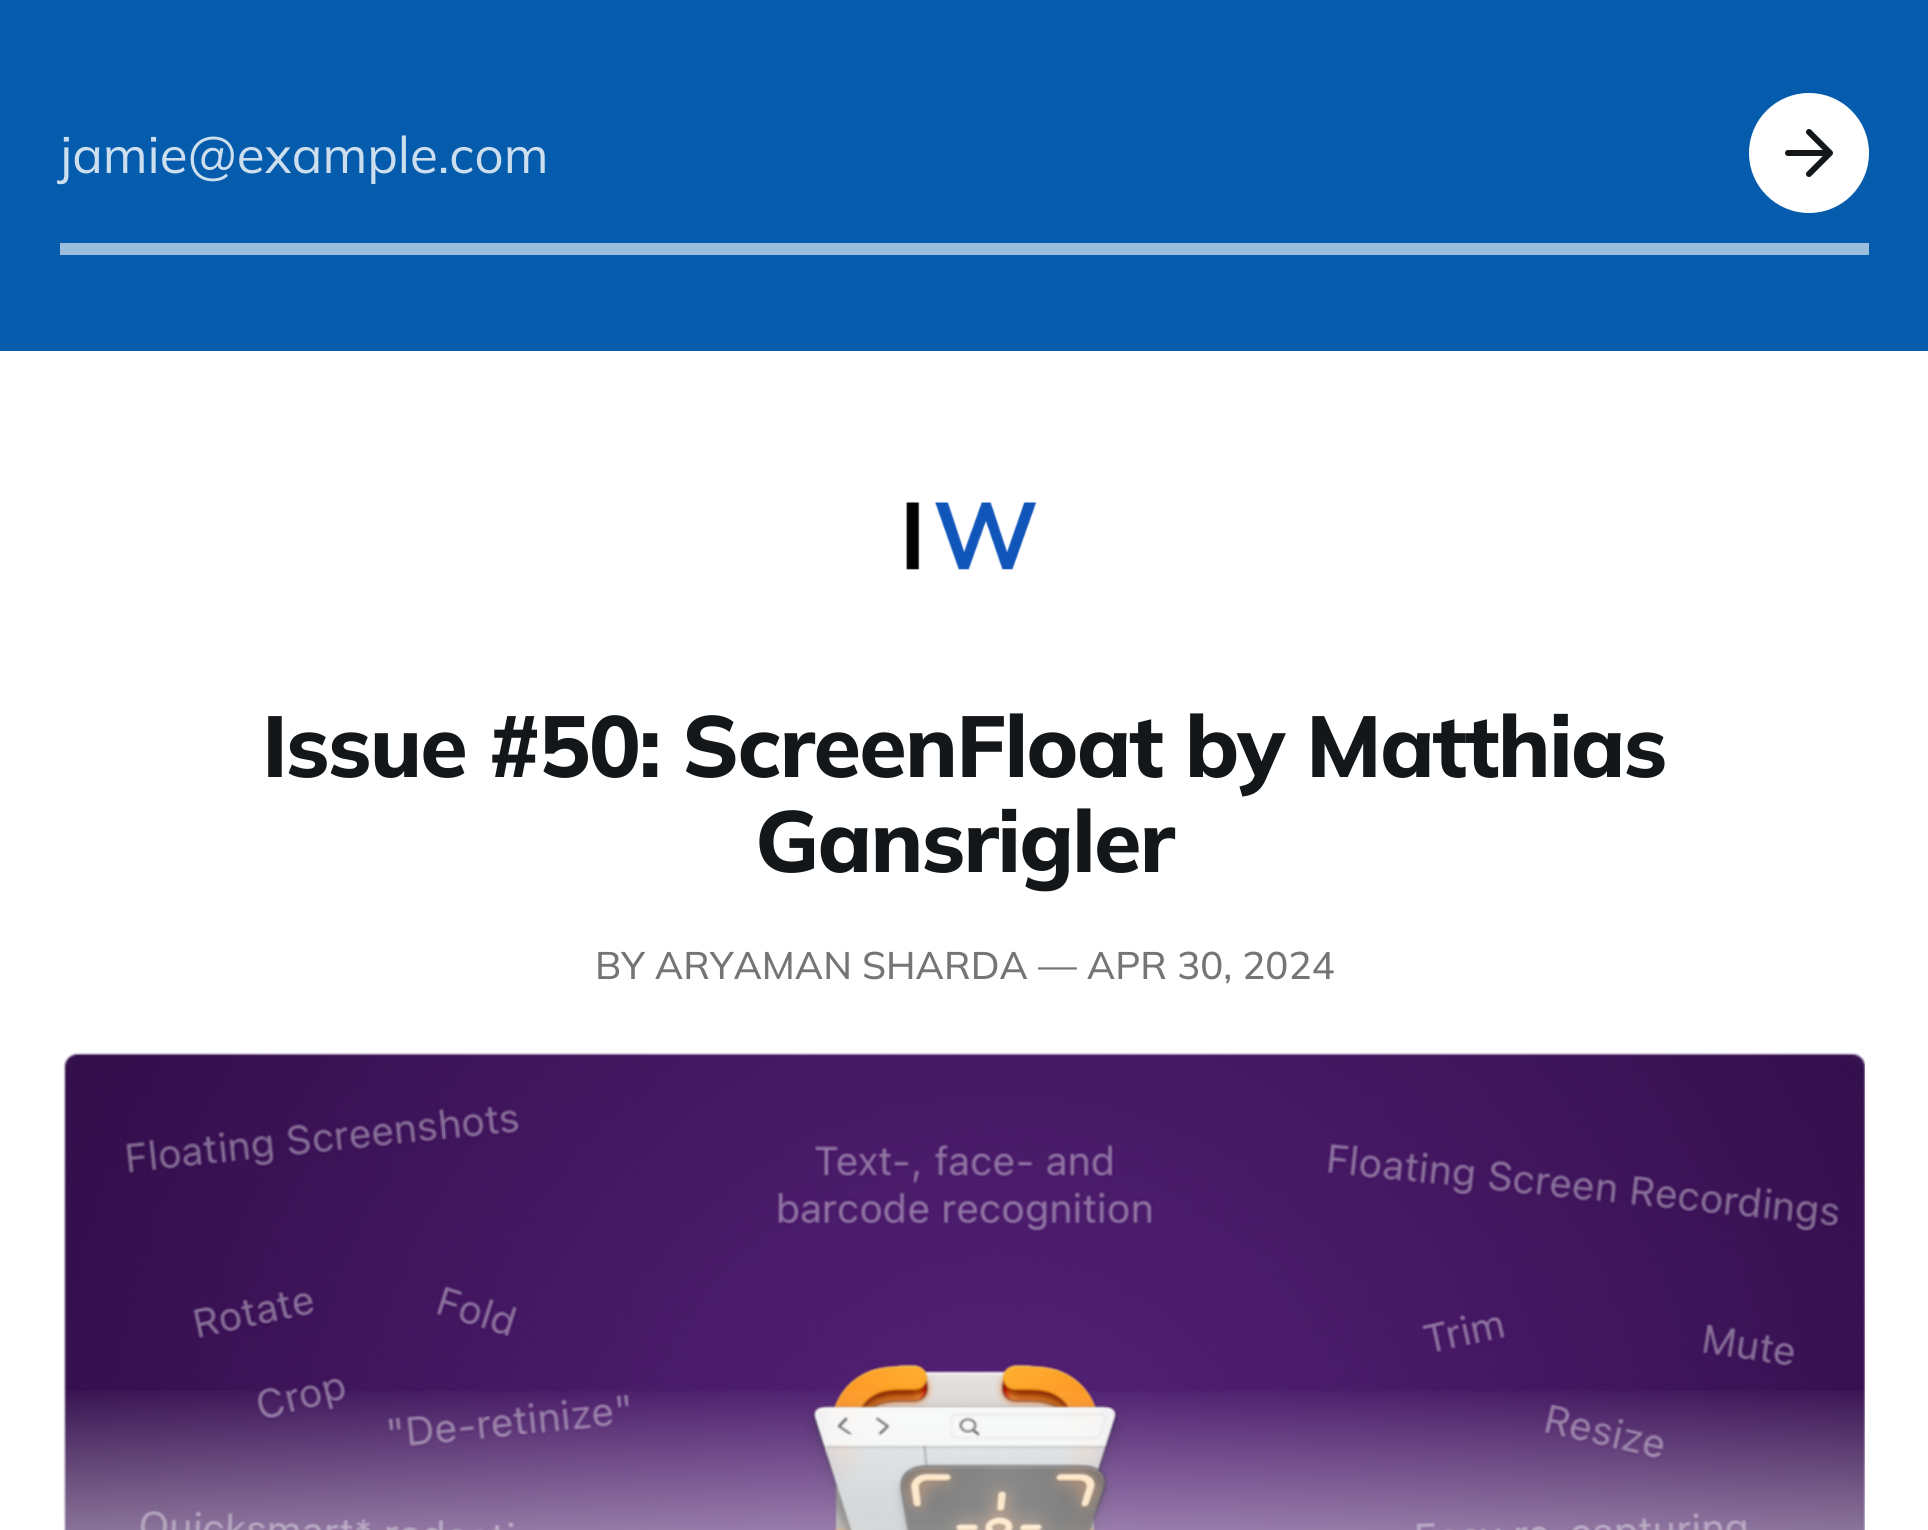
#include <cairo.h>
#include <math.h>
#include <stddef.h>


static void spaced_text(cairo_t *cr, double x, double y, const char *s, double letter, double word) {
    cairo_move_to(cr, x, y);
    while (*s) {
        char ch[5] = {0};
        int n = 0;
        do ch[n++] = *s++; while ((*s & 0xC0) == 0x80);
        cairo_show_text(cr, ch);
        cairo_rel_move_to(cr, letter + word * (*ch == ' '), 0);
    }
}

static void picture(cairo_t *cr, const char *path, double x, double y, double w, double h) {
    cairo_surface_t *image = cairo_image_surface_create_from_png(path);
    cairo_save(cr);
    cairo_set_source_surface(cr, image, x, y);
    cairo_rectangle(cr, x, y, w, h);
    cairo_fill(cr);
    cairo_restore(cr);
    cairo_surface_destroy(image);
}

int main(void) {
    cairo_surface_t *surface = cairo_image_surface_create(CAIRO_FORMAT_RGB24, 1928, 1530);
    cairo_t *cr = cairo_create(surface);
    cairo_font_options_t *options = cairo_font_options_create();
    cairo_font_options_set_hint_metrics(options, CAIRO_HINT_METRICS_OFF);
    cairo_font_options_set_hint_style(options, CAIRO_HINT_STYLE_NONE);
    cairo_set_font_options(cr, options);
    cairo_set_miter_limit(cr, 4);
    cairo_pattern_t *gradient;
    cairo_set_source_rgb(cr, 1, 1, 1);
    cairo_paint(cr);
    cairo_set_source_rgb(cr, 0.024, 0.361, 0.675);
    cairo_rectangle(cr, 0, 0, 1928, 351);
    cairo_fill(cr);
    cairo_set_source_rgb(cr, 0.608, 0.745, 0.871);
    cairo_rectangle(cr, 60, 243, 1809, 12);
    cairo_fill(cr);
    cairo_select_font_face(cr, "Mulish", CAIRO_FONT_SLANT_NORMAL, CAIRO_FONT_WEIGHT_NORMAL);
    cairo_set_font_size(cr, 51);
    cairo_set_source_rgb(cr, 0.804, 0.871, 0.933);
    cairo_move_to(cr, 60, 173);
    cairo_show_text(cr, "jamie@example.com");
    cairo_set_source_rgb(cr, 1, 1, 1);
    cairo_new_path(cr);
    cairo_arc(cr, 1809, 153, 60, 0, 2 * M_PI);
    cairo_fill(cr);
    cairo_new_path(cr);
    cairo_move_to(cr, 1788, 153);
    cairo_line_to(cr, 1830, 153);
    cairo_move_to(cr, 1809, 132);
    cairo_line_to(cr, 1830, 153);
    cairo_line_to(cr, 1809, 174);
    cairo_set_source_rgb(cr, 0.082, 0.09, 0.102);
    cairo_set_line_width(cr, 6);
    cairo_set_line_cap(cr, CAIRO_LINE_CAP_ROUND);
    cairo_set_line_join(cr, CAIRO_LINE_JOIN_ROUND);
    cairo_stroke(cr);
    picture(cr, "img1.png", 905, 502, 132, 68);
    cairo_select_font_face(cr, "Mulish ExtraBold", CAIRO_FONT_SLANT_NORMAL, CAIRO_FONT_WEIGHT_NORMAL);
    cairo_set_font_size(cr, 86.4);
    spaced_text(cr, 262, 777, "Issue #50: ScreenFloat by Matthias", -1.75, 0);
    spaced_text(cr, 755, 872, "Gansrigler", -1.75, 0);
    cairo_select_font_face(cr, "Mulish Medium", CAIRO_FONT_SLANT_NORMAL, CAIRO_FONT_WEIGHT_NORMAL);
    cairo_set_font_size(cr, 38.4);
    cairo_set_source_rgb(cr, 0.459, 0.459, 0.459);
    cairo_move_to(cr, 595, 979);
    cairo_show_text(cr, "BY ARYAMAN SHARDA — APR 30, 2024");
    picture(cr, "img2.png", 63, 1052, 1802, 478);
    gradient = cairo_pattern_create_linear(965, 1383, 965, 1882);
    cairo_pattern_add_color_stop_rgba(gradient, 0, 1, 1, 1, 0);
    cairo_pattern_add_color_stop_rgba(gradient, 0.5, 1, 1, 1, 0.7);
    cairo_pattern_add_color_stop_rgba(gradient, 1, 1, 1, 1, 1);
    cairo_set_source(cr, gradient);
    cairo_pattern_destroy(gradient);
    cairo_rectangle(cr, 63, 1391, 1802, 139);
    cairo_fill(cr);
    cairo_surface_write_to_png(surface, "page.png");
    cairo_font_options_destroy(options);
    cairo_destroy(cr);
    cairo_surface_destroy(surface);
    return 0;
}
